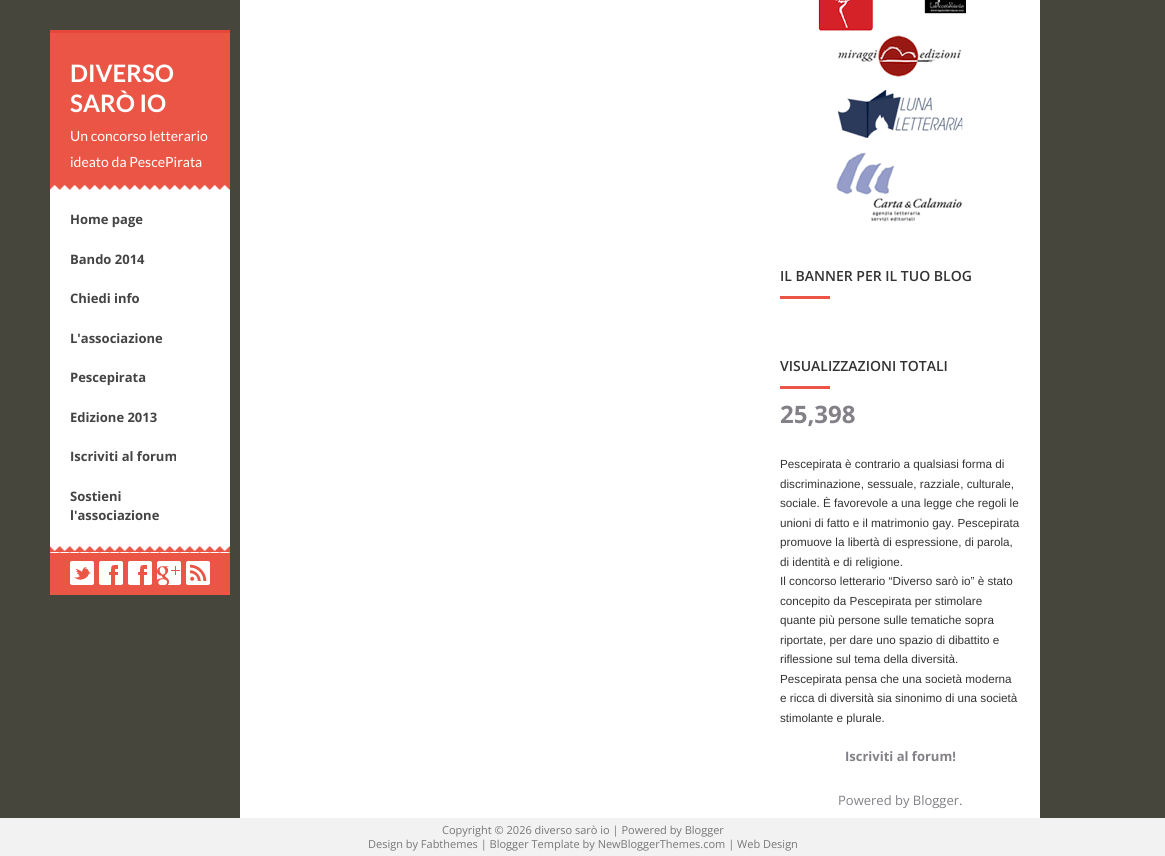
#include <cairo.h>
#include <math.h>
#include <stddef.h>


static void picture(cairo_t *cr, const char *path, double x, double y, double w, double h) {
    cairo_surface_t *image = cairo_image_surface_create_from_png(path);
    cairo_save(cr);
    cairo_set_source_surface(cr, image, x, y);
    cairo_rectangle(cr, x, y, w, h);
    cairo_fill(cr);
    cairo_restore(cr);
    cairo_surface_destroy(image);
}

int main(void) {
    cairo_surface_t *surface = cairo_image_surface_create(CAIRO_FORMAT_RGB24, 1165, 856);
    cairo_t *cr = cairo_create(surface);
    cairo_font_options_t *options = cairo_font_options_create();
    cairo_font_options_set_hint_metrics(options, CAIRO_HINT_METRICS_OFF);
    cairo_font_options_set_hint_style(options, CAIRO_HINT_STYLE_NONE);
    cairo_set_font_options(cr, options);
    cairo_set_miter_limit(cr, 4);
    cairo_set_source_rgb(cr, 0.275, 0.275, 0.235);
    cairo_paint(cr);
    cairo_set_source_rgb(cr, 0.918, 0.333, 0.275);
    cairo_rectangle(cr, 50, 33, 180, 562);
    cairo_fill(cr);
    cairo_set_source_rgb(cr, 0.902, 0.278, 0.231);
    cairo_rectangle(cr, 50, 30, 180, 3);
    cairo_fill(cr);
    picture(cr, "img1.png", 50, 185, 180, 5);
    cairo_select_font_face(cr, "Lato", CAIRO_FONT_SLANT_NORMAL, CAIRO_FONT_WEIGHT_BOLD);
    cairo_set_font_size(cr, 24);
    cairo_set_source_rgb(cr, 1, 1, 1);
    cairo_move_to(cr, 70, 82);
    cairo_show_text(cr, "DIVERSO");
    cairo_move_to(cr, 70, 112);
    cairo_show_text(cr, "SARÒ IO");
    cairo_select_font_face(cr, "Lato", CAIRO_FONT_SLANT_NORMAL, CAIRO_FONT_WEIGHT_NORMAL);
    cairo_set_font_size(cr, 14);
    cairo_move_to(cr, 70, 141);
    cairo_show_text(cr, "Un concorso letterario");
    cairo_move_to(cr, 70, 167);
    cairo_show_text(cr, "ideato da PescePirata");
    cairo_rectangle(cr, 50, 190, 180, 356);
    cairo_fill(cr);
    cairo_select_font_face(cr, "Open Sans", CAIRO_FONT_SLANT_NORMAL, CAIRO_FONT_WEIGHT_BOLD);
    cairo_set_font_size(cr, 13);
    cairo_set_source_rgb(cr, 0.267, 0.267, 0.267);
    cairo_move_to(cr, 70, 224);
    cairo_show_text(cr, "Home page");
    cairo_move_to(cr, 70, 264);
    cairo_show_text(cr, "Bando 2014");
    cairo_move_to(cr, 70, 303);
    cairo_show_text(cr, "Chiedi info");
    cairo_move_to(cr, 70, 343);
    cairo_show_text(cr, "L'associazione");
    cairo_move_to(cr, 70, 382);
    cairo_show_text(cr, "Pescepirata");
    cairo_move_to(cr, 70, 422);
    cairo_show_text(cr, "Edizione 2013");
    cairo_move_to(cr, 70, 461);
    cairo_show_text(cr, "Iscriviti al forum");
    cairo_move_to(cr, 70, 501);
    cairo_show_text(cr, "Sostieni");
    cairo_move_to(cr, 70, 520);
    cairo_show_text(cr, "l'associazione");
    picture(cr, "img2.png", 50, 546, 180, 7);
    picture(cr, "img3.png", 70, 561, 24, 24);
    picture(cr, "img4.png", 99, 561, 24, 24);
    picture(cr, "img4.png", 128, 561, 24, 24);
    picture(cr, "img5.png", 157, 561, 24, 24);
    picture(cr, "img6.png", 186, 561, 24, 24);
    cairo_set_source_rgb(cr, 1, 1, 1);
    cairo_rectangle(cr, 240, 0, 800, 818);
    cairo_fill(cr);
    picture(cr, "img7.png", 818, 0, 148, 222);
    cairo_set_source_rgb(cr, 0.918, 0.333, 0.275);
    cairo_rectangle(cr, 780, 296, 50, 3);
    cairo_fill(cr);
    cairo_select_font_face(cr, "Open Sans SemiBold", CAIRO_FONT_SLANT_NORMAL, CAIRO_FONT_WEIGHT_NORMAL);
    cairo_set_font_size(cr, 14);
    cairo_set_source_rgb(cr, 0.2, 0.2, 0.2);
    cairo_move_to(cr, 780, 281);
    cairo_show_text(cr, "IL BANNER PER IL TUO BLOG");
    cairo_set_source_rgb(cr, 0.918, 0.333, 0.275);
    cairo_rectangle(cr, 780, 386, 50, 3);
    cairo_fill(cr);
    cairo_set_source_rgb(cr, 0.2, 0.2, 0.2);
    cairo_move_to(cr, 780, 371);
    cairo_show_text(cr, "VISUALIZZAZIONI TOTALI");
    cairo_select_font_face(cr, "Open Sans", CAIRO_FONT_SLANT_NORMAL, CAIRO_FONT_WEIGHT_BOLD);
    cairo_set_font_size(cr, 24);
    cairo_set_source_rgb(cr, 0.514, 0.502, 0.529);
    cairo_move_to(cr, 780, 423);
    cairo_show_text(cr, "25,398");
    cairo_select_font_face(cr, "Liberation Sans", CAIRO_FONT_SLANT_NORMAL, CAIRO_FONT_WEIGHT_NORMAL);
    cairo_set_font_size(cr, 11.7);
    cairo_set_source_rgb(cr, 0.2, 0.2, 0.2);
    cairo_move_to(cr, 780, 468);
    cairo_show_text(cr, "Pescepirata è contrario a qualsiasi forma di");
    cairo_move_to(cr, 780, 488);
    cairo_show_text(cr, "discriminazione, sessuale, razziale, culturale,");
    cairo_move_to(cr, 780, 507);
    cairo_show_text(cr, "sociale. È favorevole a una legge che regoli le");
    cairo_move_to(cr, 780, 527);
    cairo_show_text(cr, "unioni di fatto e il matrimonio gay. Pescepirata");
    cairo_move_to(cr, 780, 546);
    cairo_show_text(cr, "promuove la libertà di espressione, di parola,");
    cairo_move_to(cr, 780, 566);
    cairo_show_text(cr, "di identità e di religione.");
    cairo_move_to(cr, 780, 585);
    cairo_show_text(cr, "Il concorso letterario “Diverso sarò io” è stato");
    cairo_move_to(cr, 780, 605);
    cairo_show_text(cr, "concepito da Pescepirata per stimolare");
    cairo_move_to(cr, 780, 624);
    cairo_show_text(cr, "quante più persone sulle tematiche sopra");
    cairo_move_to(cr, 780, 644);
    cairo_show_text(cr, "riportate, per dare uno spazio di dibattito e");
    cairo_move_to(cr, 780, 663);
    cairo_show_text(cr, "riflessione sul tema della diversità.");
    cairo_move_to(cr, 780, 683);
    cairo_show_text(cr, "Pescepirata pensa che una società moderna");
    cairo_move_to(cr, 780, 702);
    cairo_show_text(cr, "e ricca di diversità sia sinonimo di una società");
    cairo_move_to(cr, 780, 722);
    cairo_show_text(cr, "stimolante e plurale.");
    cairo_select_font_face(cr, "Open Sans", CAIRO_FONT_SLANT_NORMAL, CAIRO_FONT_WEIGHT_BOLD);
    cairo_set_font_size(cr, 13);
    cairo_set_source_rgb(cr, 0.514, 0.502, 0.529);
    cairo_move_to(cr, 845, 761);
    cairo_show_text(cr, "Iscriviti al forum!");
    cairo_select_font_face(cr, "Open Sans", CAIRO_FONT_SLANT_NORMAL, CAIRO_FONT_WEIGHT_NORMAL);
    cairo_move_to(cr, 838, 805);
    cairo_show_text(cr, "Powered by Blogger.");
    cairo_set_source_rgb(cr, 0.949, 0.949, 0.949);
    cairo_rectangle(cr, 0, 818, 1165, 38);
    cairo_fill(cr);
    cairo_set_font_size(cr, 11);
    cairo_set_source_rgb(cr, 0.467, 0.467, 0.467);
    cairo_move_to(cr, 442, 834);
    cairo_show_text(cr, "Copyright © 2026 diverso sarò io | Powered by Blogger");
    cairo_move_to(cr, 368, 848);
    cairo_show_text(cr, "Design by Fabthemes | Blogger Template by NewBloggerThemes.com | Web Design");
    cairo_surface_write_to_png(surface, "page.png");
    cairo_font_options_destroy(options);
    cairo_destroy(cr);
    cairo_surface_destroy(surface);
    return 0;
}
